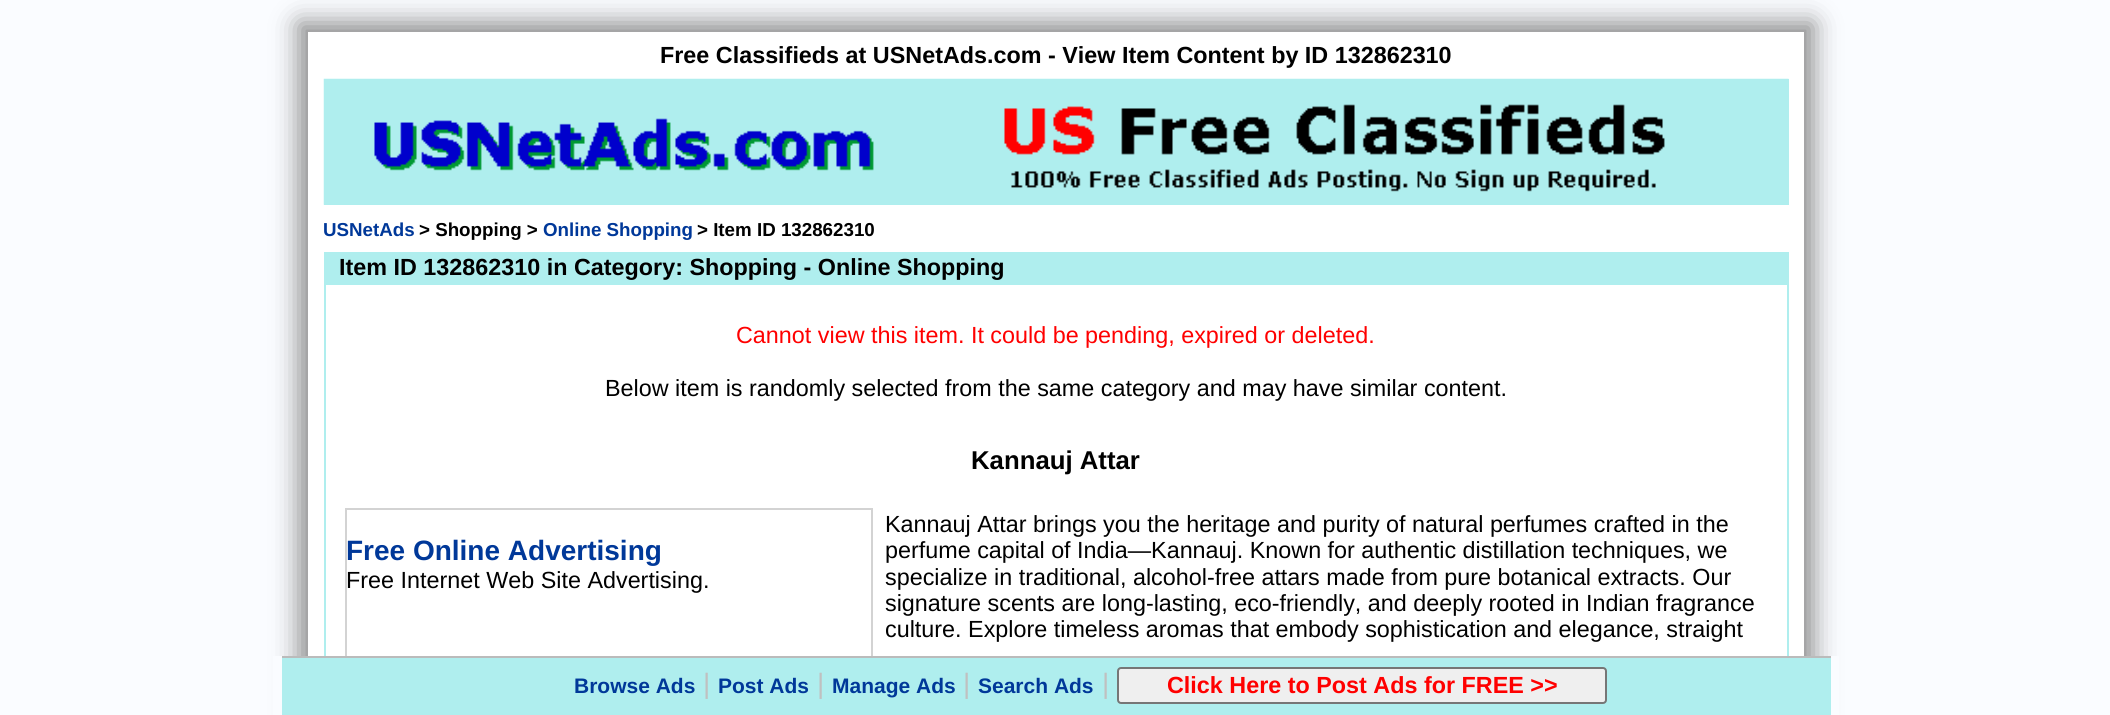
#include <cairo.h>
#include <math.h>
#include <stddef.h>


static void round_rect(cairo_t *cr, double x, double y, double w, double h, double r) {
    cairo_new_sub_path(cr);
    cairo_arc(cr, x + w - r, y + h - r, r, 0, M_PI / 2);
    cairo_arc(cr, x + r, y + h - r, r, M_PI / 2, M_PI);
    cairo_arc(cr, x + r, y + r, r, M_PI, 1.5 * M_PI);
    cairo_arc(cr, x + w - r, y + r, r, 1.5 * M_PI, 2 * M_PI);
    cairo_close_path(cr);
}

static void shadow(cairo_t *cr, double x, double y, double w, double h, double r, double blur, double alpha) {
    cairo_push_group_with_content(cr, CAIRO_CONTENT_ALPHA);
    cairo_set_operator(cr, CAIRO_OPERATOR_SOURCE);
    for (int i = 15; i >= -15 && fmin(w, h) + blur * i / 3 > 0; i -= 2) {
        double e = blur * i / 6;
        cairo_set_source_rgba(cr, 0, 0, 0, alpha * erfc((i - 1) / 8.5) / 2);
        round_rect(cr, x - e, y - e, w + 2 * e, h + 2 * e, fmax(0, fmin(r + e + blur * .6, fmin(w, h) / 2 + e)));
        cairo_fill(cr);
    }
    cairo_pattern_t *soft = cairo_pop_group(cr);
    cairo_mask(cr, soft);
    cairo_pattern_destroy(soft);
}

static void picture(cairo_t *cr, const char *path, double x, double y, double w, double h) {
    cairo_surface_t *image = cairo_image_surface_create_from_png(path);
    cairo_save(cr);
    cairo_set_source_surface(cr, image, x, y);
    cairo_rectangle(cr, x, y, w, h);
    cairo_fill(cr);
    cairo_restore(cr);
    cairo_surface_destroy(image);
}

int main(void) {
    cairo_surface_t *surface = cairo_image_surface_create(CAIRO_FORMAT_RGB24, 2110, 715);
    cairo_t *cr = cairo_create(surface);
    cairo_font_options_t *options = cairo_font_options_create();
    cairo_font_options_set_hint_metrics(options, CAIRO_HINT_METRICS_OFF);
    cairo_font_options_set_hint_style(options, CAIRO_HINT_STYLE_NONE);
    cairo_set_font_options(cr, options);
    cairo_set_miter_limit(cr, 4);
    cairo_set_source_rgb(cr, 0.98, 0.988, 1);
    cairo_paint(cr);
    cairo_set_source_rgb(cr, 0.533, 0.533, 0.533);
    shadow(cr, 299, 23, 1514, 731, 0, 13, 1);
    cairo_set_source_rgb(cr, 1, 1, 1);
    cairo_rectangle(cr, 308, 32, 1496, 624);
    cairo_fill(cr);
    cairo_select_font_face(cr, "Liberation Sans", CAIRO_FONT_SLANT_NORMAL, CAIRO_FONT_WEIGHT_BOLD);
    cairo_set_font_size(cr, 23.35);
    cairo_set_source_rgb(cr, 0, 0, 0);
    cairo_move_to(cr, 660, 63);
    cairo_show_text(cr, "Free Classifieds at USNetAds.com - View Item Content by ID 132862310");
    cairo_set_source_rgb(cr, 0.686, 0.933, 0.933);
    cairo_rectangle(cr, 324, 79, 1465, 126);
    cairo_fill(cr);
    picture(cr, "img1.png", 323, 78, 1466, 127);
    cairo_set_font_size(cr, 18.75);
    cairo_set_source_rgb(cr, 0, 0.22, 0.6);
    cairo_move_to(cr, 323, 236);
    cairo_show_text(cr, "USNetAds");
    cairo_set_source_rgb(cr, 0, 0, 0);
    cairo_move_to(cr, 419, 236);
    cairo_show_text(cr, "> Shopping >");
    cairo_set_source_rgb(cr, 0, 0.22, 0.6);
    cairo_move_to(cr, 543, 236);
    cairo_show_text(cr, "Online Shopping");
    cairo_set_source_rgb(cr, 0, 0, 0);
    cairo_move_to(cr, 697, 236);
    cairo_show_text(cr, "> Item ID 132862310");
    cairo_set_source_rgb(cr, 0.686, 0.933, 0.933);
    cairo_rectangle(cr, 324, 252, 1465, 404);
    cairo_fill(cr);
    cairo_set_font_size(cr, 23.35);
    cairo_set_source_rgb(cr, 0, 0, 0);
    cairo_move_to(cr, 339, 275);
    cairo_show_text(cr, "Item ID 132862310 in Category: Shopping - Online Shopping");
    cairo_set_source_rgb(cr, 1, 1, 1);
    cairo_rectangle(cr, 326, 285, 1461, 371);
    cairo_fill(cr);
    cairo_select_font_face(cr, "Liberation Sans", CAIRO_FONT_SLANT_NORMAL, CAIRO_FONT_WEIGHT_NORMAL);
    cairo_set_source_rgb(cr, 1, 0, 0);
    cairo_move_to(cr, 736, 343);
    cairo_show_text(cr, "Cannot view this item. It could be pending, expired or deleted.");
    cairo_set_source_rgb(cr, 0, 0, 0);
    cairo_move_to(cr, 605, 396);
    cairo_show_text(cr, "Below item is randomly selected from the same category and may have similar content.");
    cairo_select_font_face(cr, "Liberation Sans", CAIRO_FONT_SLANT_NORMAL, CAIRO_FONT_WEIGHT_BOLD);
    cairo_set_font_size(cr, 25.75);
    cairo_move_to(cr, 971, 469);
    cairo_show_text(cr, "Kannauj Attar");
    cairo_select_font_face(cr, "Liberation Sans", CAIRO_FONT_SLANT_NORMAL, CAIRO_FONT_WEIGHT_NORMAL);
    cairo_set_font_size(cr, 23.35);
    cairo_move_to(cr, 885, 532);
    cairo_show_text(cr, "Kannauj Attar brings you the heritage and purity of natural perfumes crafted in the");
    cairo_rectangle(cr, 346, 509, 526, 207);
    cairo_set_source_rgb(cr, 0.827, 0.827, 0.827);
    cairo_stroke(cr);
    cairo_select_font_face(cr, "Liberation Sans", CAIRO_FONT_SLANT_NORMAL, CAIRO_FONT_WEIGHT_BOLD);
    cairo_set_font_size(cr, 28);
    cairo_set_source_rgb(cr, 0, 0.22, 0.6);
    cairo_move_to(cr, 346, 560);
    cairo_show_text(cr, "Free Online Advertising");
    cairo_select_font_face(cr, "Liberation Sans", CAIRO_FONT_SLANT_NORMAL, CAIRO_FONT_WEIGHT_NORMAL);
    cairo_set_font_size(cr, 23.35);
    cairo_set_source_rgb(cr, 0, 0, 0);
    cairo_move_to(cr, 346, 588);
    cairo_show_text(cr, "Free Internet Web Site Advertising.");
    cairo_move_to(cr, 885, 558);
    cairo_show_text(cr, "perfume capital of India—Kannauj. Known for authentic distillation techniques, we");
    cairo_move_to(cr, 885, 585);
    cairo_show_text(cr, "specialize in traditional, alcohol-free attars made from pure botanical extracts. Our");
    cairo_move_to(cr, 885, 611);
    cairo_show_text(cr, "signature scents are long-lasting, eco-friendly, and deeply rooted in Indian fragrance");
    cairo_move_to(cr, 885, 637);
    cairo_show_text(cr, "culture. Explore timeless aromas that embody sophistication and elegance, straight");
    cairo_set_source_rgb(cr, 0.98, 0.988, 1);
    cairo_rectangle(cr, 273, 656, 1566, 59);
    cairo_fill(cr);
    cairo_set_source_rgb(cr, 0.686, 0.933, 0.933);
    cairo_rectangle(cr, 282, 658, 1549, 57);
    cairo_fill(cr);
    cairo_set_source_rgb(cr, 0.733, 0.733, 0.733);
    cairo_rectangle(cr, 282, 656, 1549, 2);
    cairo_fill(cr);
    cairo_select_font_face(cr, "Liberation Sans", CAIRO_FONT_SLANT_NORMAL, CAIRO_FONT_WEIGHT_BOLD);
    cairo_set_font_size(cr, 21);
    cairo_set_source_rgb(cr, 0, 0.22, 0.6);
    cairo_move_to(cr, 574, 693);
    cairo_show_text(cr, "Browse Ads");
    cairo_select_font_face(cr, "Liberation Sans", CAIRO_FONT_SLANT_NORMAL, CAIRO_FONT_WEIGHT_NORMAL);
    cairo_set_font_size(cr, 28);
    cairo_set_source_rgb(cr, 0.753, 0.753, 0.753);
    cairo_move_to(cr, 703, 693);
    cairo_show_text(cr, "|");
    cairo_select_font_face(cr, "Liberation Sans", CAIRO_FONT_SLANT_NORMAL, CAIRO_FONT_WEIGHT_BOLD);
    cairo_set_font_size(cr, 21);
    cairo_set_source_rgb(cr, 0, 0.22, 0.6);
    cairo_move_to(cr, 718, 693);
    cairo_show_text(cr, "Post Ads");
    cairo_select_font_face(cr, "Liberation Sans", CAIRO_FONT_SLANT_NORMAL, CAIRO_FONT_WEIGHT_NORMAL);
    cairo_set_font_size(cr, 28);
    cairo_set_source_rgb(cr, 0.753, 0.753, 0.753);
    cairo_move_to(cr, 817, 693);
    cairo_show_text(cr, "|");
    cairo_select_font_face(cr, "Liberation Sans", CAIRO_FONT_SLANT_NORMAL, CAIRO_FONT_WEIGHT_BOLD);
    cairo_set_font_size(cr, 21);
    cairo_set_source_rgb(cr, 0, 0.22, 0.6);
    cairo_move_to(cr, 832, 693);
    cairo_show_text(cr, "Manage Ads");
    cairo_select_font_face(cr, "Liberation Sans", CAIRO_FONT_SLANT_NORMAL, CAIRO_FONT_WEIGHT_NORMAL);
    cairo_set_font_size(cr, 28);
    cairo_set_source_rgb(cr, 0.753, 0.753, 0.753);
    cairo_move_to(cr, 963, 693);
    cairo_show_text(cr, "|");
    cairo_select_font_face(cr, "Liberation Sans", CAIRO_FONT_SLANT_NORMAL, CAIRO_FONT_WEIGHT_BOLD);
    cairo_set_font_size(cr, 21);
    cairo_set_source_rgb(cr, 0, 0.22, 0.6);
    cairo_move_to(cr, 978, 693);
    cairo_show_text(cr, "Search Ads");
    cairo_select_font_face(cr, "Liberation Sans", CAIRO_FONT_SLANT_NORMAL, CAIRO_FONT_WEIGHT_NORMAL);
    cairo_set_font_size(cr, 28);
    cairo_set_source_rgb(cr, 0.753, 0.753, 0.753);
    cairo_move_to(cr, 1102, 693);
    cairo_show_text(cr, "|");
    cairo_set_source_rgb(cr, 0.937, 0.937, 0.937);
    round_rect(cr, 1118, 668, 488, 35, 3);
    cairo_fill_preserve(cr);
    cairo_set_source_rgb(cr, 0.463, 0.463, 0.463);
    cairo_stroke(cr);
    cairo_select_font_face(cr, "Liberation Sans", CAIRO_FONT_SLANT_NORMAL, CAIRO_FONT_WEIGHT_BOLD);
    cairo_set_font_size(cr, 23.35);
    cairo_set_source_rgb(cr, 1, 0, 0);
    cairo_move_to(cr, 1167, 693);
    cairo_show_text(cr, "Click Here to Post Ads for FREE >>");
    cairo_surface_write_to_png(surface, "page.png");
    cairo_font_options_destroy(options);
    cairo_destroy(cr);
    cairo_surface_destroy(surface);
    return 0;
}
